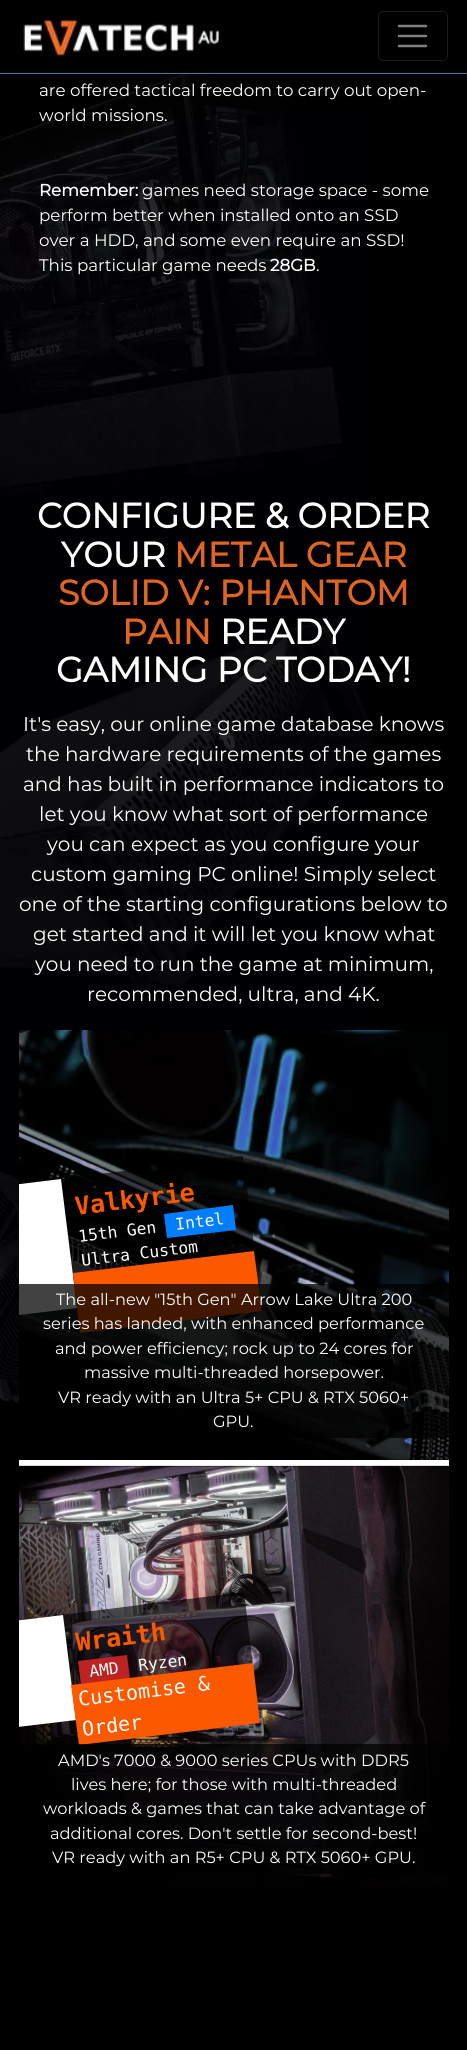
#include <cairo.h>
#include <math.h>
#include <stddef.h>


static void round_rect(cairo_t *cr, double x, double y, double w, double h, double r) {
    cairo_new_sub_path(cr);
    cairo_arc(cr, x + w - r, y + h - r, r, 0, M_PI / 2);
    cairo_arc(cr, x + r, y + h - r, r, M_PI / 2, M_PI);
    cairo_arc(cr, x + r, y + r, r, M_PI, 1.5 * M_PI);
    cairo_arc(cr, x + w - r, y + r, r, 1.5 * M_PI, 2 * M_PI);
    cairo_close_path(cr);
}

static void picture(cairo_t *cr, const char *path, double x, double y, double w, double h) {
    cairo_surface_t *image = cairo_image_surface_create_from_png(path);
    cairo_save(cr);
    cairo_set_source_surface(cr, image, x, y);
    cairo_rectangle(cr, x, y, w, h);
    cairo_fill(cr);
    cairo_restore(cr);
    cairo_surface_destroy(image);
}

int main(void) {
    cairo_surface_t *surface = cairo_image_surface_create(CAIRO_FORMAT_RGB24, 467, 2050);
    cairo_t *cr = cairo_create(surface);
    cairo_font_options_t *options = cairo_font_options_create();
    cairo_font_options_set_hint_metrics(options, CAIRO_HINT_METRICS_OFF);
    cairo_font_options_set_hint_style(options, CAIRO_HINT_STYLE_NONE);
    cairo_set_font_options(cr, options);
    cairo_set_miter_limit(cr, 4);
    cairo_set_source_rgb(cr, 0, 0, 0);
    cairo_paint(cr);
    cairo_set_source_rgb(cr, 0.204, 0.502, 0.655);
    cairo_rectangle(cr, 0, 73, 467, 1);
    cairo_fill(cr);
    picture(cr, "img1.png", 23, 19, 196, 38);
    round_rect(cr, 378.5, 11.5, 69, 49, 4.5);
    cairo_set_source_rgb(cr, 0.102, 0.102, 0.102);
    cairo_set_line_width(cr, 1);
    cairo_stroke(cr);
    cairo_new_path(cr);
    cairo_move_to(cr, 399, 26);
    cairo_line_to(cr, 426, 26);
    cairo_move_to(cr, 399, 36);
    cairo_line_to(cr, 426, 36);
    cairo_move_to(cr, 399, 46);
    cairo_line_to(cr, 426, 46);
    cairo_set_source_rgb(cr, 0.502, 0.502, 0.502);
    cairo_set_line_width(cr, 2.5);
    cairo_set_line_cap(cr, CAIRO_LINE_CAP_ROUND);
    cairo_stroke(cr);
    picture(cr, "img2.png", 0, 74, 373, 1330);
    cairo_select_font_face(cr, "Montserrat Thin", CAIRO_FONT_SLANT_NORMAL, CAIRO_FONT_WEIGHT_NORMAL);
    cairo_set_font_size(cr, 16.7);
    cairo_set_source_rgb(cr, 1, 1, 1);
    cairo_move_to(cr, 39, 96);
    cairo_show_text(cr, "are offered tactical freedom to carry out open-");
    cairo_move_to(cr, 39, 121);
    cairo_show_text(cr, "world missions.");
    cairo_select_font_face(cr, "Montserrat", CAIRO_FONT_SLANT_NORMAL, CAIRO_FONT_WEIGHT_BOLD);
    cairo_move_to(cr, 39, 196);
    cairo_show_text(cr, "Remember:");
    cairo_select_font_face(cr, "Montserrat Thin", CAIRO_FONT_SLANT_NORMAL, CAIRO_FONT_WEIGHT_NORMAL);
    cairo_move_to(cr, 142, 196);
    cairo_show_text(cr, "games need storage space - some");
    cairo_move_to(cr, 39, 221);
    cairo_show_text(cr, "perform better when installed onto an SSD");
    cairo_move_to(cr, 39, 246);
    cairo_show_text(cr, "over a HDD, and some even require an SSD!");
    cairo_move_to(cr, 39, 271);
    cairo_show_text(cr, "This particular game needs");
    cairo_select_font_face(cr, "Montserrat", CAIRO_FONT_SLANT_NORMAL, CAIRO_FONT_WEIGHT_BOLD);
    cairo_move_to(cr, 270, 271);
    cairo_show_text(cr, "28GB");
    cairo_select_font_face(cr, "Montserrat Thin", CAIRO_FONT_SLANT_NORMAL, CAIRO_FONT_WEIGHT_NORMAL);
    cairo_move_to(cr, 316, 271);
    cairo_show_text(cr, ".");
    cairo_select_font_face(cr, "Montserrat", CAIRO_FONT_SLANT_NORMAL, CAIRO_FONT_WEIGHT_BOLD);
    cairo_set_font_size(cr, 35);
    cairo_move_to(cr, 37, 528);
    cairo_show_text(cr, "CONFIGURE & ORDER");
    cairo_move_to(cr, 61, 567);
    cairo_show_text(cr, "YOUR");
    cairo_set_source_rgb(cr, 0.875, 0.4, 0.133);
    cairo_move_to(cr, 174, 567);
    cairo_show_text(cr, "METAL GEAR");
    cairo_move_to(cr, 58, 605);
    cairo_show_text(cr, "SOLID V: PHANTOM");
    cairo_move_to(cr, 122, 644);
    cairo_show_text(cr, "PAIN");
    cairo_set_source_rgb(cr, 1, 1, 1);
    cairo_move_to(cr, 220, 644);
    cairo_show_text(cr, "READY");
    cairo_move_to(cr, 56, 682);
    cairo_show_text(cr, "GAMING PC TODAY!");
    cairo_select_font_face(cr, "Montserrat Thin", CAIRO_FONT_SLANT_NORMAL, CAIRO_FONT_WEIGHT_NORMAL);
    cairo_set_font_size(cr, 20);
    cairo_move_to(cr, 23, 731);
    cairo_show_text(cr, "It's easy, our online game database knows");
    cairo_move_to(cr, 26, 761);
    cairo_show_text(cr, "the hardware requirements of the games");
    cairo_move_to(cr, 23, 791);
    cairo_show_text(cr, "and has built in performance indicators to");
    cairo_move_to(cr, 39, 821);
    cairo_show_text(cr, "let you know what sort of performance");
    cairo_move_to(cr, 47, 851);
    cairo_show_text(cr, "you can expect as you configure your");
    cairo_move_to(cr, 31, 881);
    cairo_show_text(cr, "custom gaming PC online! Simply select");
    cairo_move_to(cr, 19, 911);
    cairo_show_text(cr, "one of the starting configurations below to");
    cairo_move_to(cr, 33, 941);
    cairo_show_text(cr, "get started and it will let you know what");
    cairo_move_to(cr, 35, 971);
    cairo_show_text(cr, "you need to run the game at minimum,");
    cairo_move_to(cr, 87, 1001);
    cairo_show_text(cr, "recommended, ultra, and 4K.");
    cairo_rectangle(cr, 19, 1460, 430, 6);
    cairo_fill(cr);
    picture(cr, "img3.png", 19, 1030, 430, 430);
    cairo_save(cr);
    cairo_rectangle(cr, 19, 1030, 430, 430);
    cairo_clip(cr);
    cairo_set_source_rgba(cr, 0, 0, 0, 0.62);
    cairo_new_path(cr);
    cairo_move_to(cr, -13, 1188);
    cairo_line_to(cr, 243, 1156);
    cairo_line_to(cr, 259, 1286);
    cairo_line_to(cr, 3, 1317);
    cairo_close_path(cr);
    cairo_fill(cr);
    cairo_set_source_rgb(cr, 1, 1, 1);
    cairo_new_path(cr);
    cairo_move_to(cr, -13, 1188);
    cairo_line_to(cr, 61, 1179);
    cairo_line_to(cr, 77, 1308);
    cairo_line_to(cr, 3, 1317);
    cairo_close_path(cr);
    cairo_fill(cr);
    cairo_restore(cr);
    cairo_select_font_face(cr, "DejaVu Sans Mono", CAIRO_FONT_SLANT_NORMAL, CAIRO_FONT_WEIGHT_BOLD);
    cairo_set_font_size(cr, 25);
    cairo_set_source_rgb(cr, 0.984, 0.349, 0);
    cairo_save(cr);
    cairo_translate(cr, 76, 1215);
    cairo_rotate(cr, -7 * M_PI / 180);
    cairo_move_to(cr, 0, 0);
    cairo_show_text(cr, "Valkyrie");
    cairo_restore(cr);
    cairo_set_source_rgb(cr, 0, 0.494, 1);
    cairo_new_path(cr);
    cairo_move_to(cr, 164, 1214);
    cairo_line_to(cr, 233, 1205);
    cairo_line_to(cr, 236, 1230);
    cairo_line_to(cr, 167, 1238);
    cairo_close_path(cr);
    cairo_fill(cr);
    cairo_select_font_face(cr, "DejaVu Sans Mono", CAIRO_FONT_SLANT_NORMAL, CAIRO_FONT_WEIGHT_NORMAL);
    cairo_set_font_size(cr, 16.25);
    cairo_set_source_rgb(cr, 1, 1, 1);
    cairo_save(cr);
    cairo_translate(cr, 176, 1230);
    cairo_rotate(cr, -7 * M_PI / 180);
    cairo_move_to(cr, 0, 0);
    cairo_show_text(cr, "Intel");
    cairo_restore(cr);
    cairo_save(cr);
    cairo_translate(cr, 79, 1242);
    cairo_rotate(cr, -7 * M_PI / 180);
    cairo_move_to(cr, 0, 0);
    cairo_show_text(cr, "15th Gen");
    cairo_restore(cr);
    cairo_save(cr);
    cairo_translate(cr, 82, 1266);
    cairo_rotate(cr, -7 * M_PI / 180);
    cairo_move_to(cr, 0, 0);
    cairo_show_text(cr, "Ultra Custom");
    cairo_restore(cr);
    cairo_set_source_rgb(cr, 0.984, 0.349, 0);
    cairo_new_path(cr);
    cairo_move_to(cr, 73, 1273);
    cairo_line_to(cr, 254, 1251);
    cairo_line_to(cr, 262, 1311);
    cairo_line_to(cr, 80, 1333);
    cairo_close_path(cr);
    cairo_fill(cr);
    cairo_set_source_rgba(cr, 0, 0, 0, 0.74);
    cairo_rectangle(cr, 19, 1284, 430, 154);
    cairo_fill(cr);
    cairo_select_font_face(cr, "Montserrat Thin", CAIRO_FONT_SLANT_NORMAL, CAIRO_FONT_WEIGHT_NORMAL);
    cairo_set_source_rgb(cr, 1, 1, 1);
    cairo_move_to(cr, 56, 1305);
    cairo_show_text(cr, "The all-new \"15th Gen\" Arrow Lake Ultra 200");
    cairo_move_to(cr, 43, 1329);
    cairo_show_text(cr, "series has landed, with enhanced performance");
    cairo_move_to(cr, 55, 1354);
    cairo_show_text(cr, "and power efficiency; rock up to 24 cores for");
    cairo_move_to(cr, 84, 1378);
    cairo_show_text(cr, "massive multi-threaded horsepower.");
    cairo_move_to(cr, 58, 1403);
    cairo_show_text(cr, "VR ready with an Ultra 5+ CPU & RTX 5060+");
    cairo_move_to(cr, 213, 1427);
    cairo_show_text(cr, "GPU.");
    picture(cr, "img4.png", 19, 1465, 430, 422);
    cairo_save(cr);
    cairo_rectangle(cr, 19, 1466, 430, 430);
    cairo_clip(cr);
    cairo_set_source_rgba(cr, 0, 0, 0, 0.62);
    cairo_new_path(cr);
    cairo_move_to(cr, -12, 1624);
    cairo_line_to(cr, 244, 1592);
    cairo_line_to(cr, 257, 1698);
    cairo_line_to(cr, 1, 1729);
    cairo_close_path(cr);
    cairo_fill(cr);
    cairo_set_source_rgb(cr, 1, 1, 1);
    cairo_new_path(cr);
    cairo_move_to(cr, -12, 1624);
    cairo_line_to(cr, 63, 1615);
    cairo_line_to(cr, 76, 1720);
    cairo_line_to(cr, 1, 1729);
    cairo_close_path(cr);
    cairo_fill(cr);
    cairo_restore(cr);
    cairo_select_font_face(cr, "DejaVu Sans Mono", CAIRO_FONT_SLANT_NORMAL, CAIRO_FONT_WEIGHT_BOLD);
    cairo_set_font_size(cr, 25);
    cairo_set_source_rgb(cr, 0.984, 0.349, 0);
    cairo_save(cr);
    cairo_translate(cr, 77, 1651);
    cairo_rotate(cr, -7 * M_PI / 180);
    cairo_move_to(cr, 0, 0);
    cairo_show_text(cr, "Wraith");
    cairo_restore(cr);
    cairo_set_source_rgb(cr, 0.741, 0.137, 0.137);
    cairo_new_path(cr);
    cairo_move_to(cr, 78, 1661);
    cairo_line_to(cr, 127, 1655);
    cairo_line_to(cr, 130, 1679);
    cairo_line_to(cr, 81, 1685);
    cairo_close_path(cr);
    cairo_fill(cr);
    cairo_select_font_face(cr, "DejaVu Sans Mono", CAIRO_FONT_SLANT_NORMAL, CAIRO_FONT_WEIGHT_NORMAL);
    cairo_set_font_size(cr, 16.25);
    cairo_set_source_rgb(cr, 1, 1, 1);
    cairo_save(cr);
    cairo_translate(cr, 90, 1677);
    cairo_rotate(cr, -7 * M_PI / 180);
    cairo_move_to(cr, 0, 0);
    cairo_show_text(cr, "AMD");
    cairo_restore(cr);
    cairo_save(cr);
    cairo_translate(cr, 139, 1671);
    cairo_rotate(cr, -7 * M_PI / 180);
    cairo_move_to(cr, 0, 0);
    cairo_show_text(cr, "Ryzen");
    cairo_restore(cr);
    cairo_set_source_rgb(cr, 0.984, 0.349, 0);
    cairo_new_path(cr);
    cairo_move_to(cr, 71, 1685);
    cairo_line_to(cr, 253, 1663);
    cairo_line_to(cr, 260, 1723);
    cairo_line_to(cr, 79, 1745);
    cairo_close_path(cr);
    cairo_fill(cr);
    cairo_set_font_size(cr, 20);
    cairo_set_source_rgb(cr, 1, 1, 1);
    cairo_save(cr);
    cairo_translate(cr, 79, 1706);
    cairo_rotate(cr, -7 * M_PI / 180);
    cairo_move_to(cr, 0, 0);
    cairo_show_text(cr, "Customise &");
    cairo_restore(cr);
    cairo_save(cr);
    cairo_translate(cr, 83, 1736);
    cairo_rotate(cr, -7 * M_PI / 180);
    cairo_move_to(cr, 0, 0);
    cairo_show_text(cr, "Order");
    cairo_restore(cr);
    cairo_set_source_rgba(cr, 0, 0, 0, 0.74);
    cairo_rectangle(cr, 21, 1744, 428, 130);
    cairo_fill(cr);
    cairo_select_font_face(cr, "Montserrat Thin", CAIRO_FONT_SLANT_NORMAL, CAIRO_FONT_WEIGHT_NORMAL);
    cairo_set_font_size(cr, 16.25);
    cairo_set_source_rgb(cr, 1, 1, 1);
    cairo_move_to(cr, 58, 1766);
    cairo_show_text(cr, "AMD's 7000 & 9000 series CPUs with DDR5");
    cairo_move_to(cr, 71, 1790);
    cairo_show_text(cr, "lives here; for those with multi-threaded");
    cairo_move_to(cr, 43, 1814);
    cairo_show_text(cr, "workloads & games that can take advantage of");
    cairo_move_to(cr, 50, 1839);
    cairo_show_text(cr, "additional cores. Don't settle for second-best!");
    cairo_move_to(cr, 52, 1863);
    cairo_show_text(cr, "VR ready with an R5+ CPU & RTX 5060+ GPU.");
    cairo_surface_write_to_png(surface, "page.png");
    cairo_font_options_destroy(options);
    cairo_destroy(cr);
    cairo_surface_destroy(surface);
    return 0;
}
